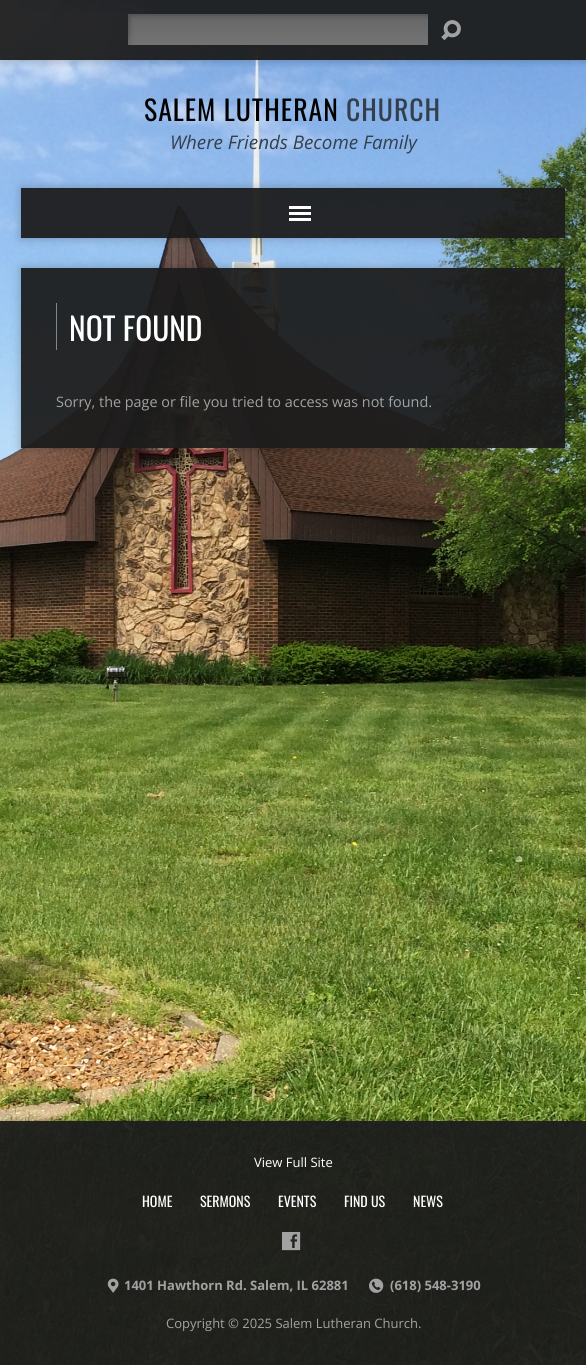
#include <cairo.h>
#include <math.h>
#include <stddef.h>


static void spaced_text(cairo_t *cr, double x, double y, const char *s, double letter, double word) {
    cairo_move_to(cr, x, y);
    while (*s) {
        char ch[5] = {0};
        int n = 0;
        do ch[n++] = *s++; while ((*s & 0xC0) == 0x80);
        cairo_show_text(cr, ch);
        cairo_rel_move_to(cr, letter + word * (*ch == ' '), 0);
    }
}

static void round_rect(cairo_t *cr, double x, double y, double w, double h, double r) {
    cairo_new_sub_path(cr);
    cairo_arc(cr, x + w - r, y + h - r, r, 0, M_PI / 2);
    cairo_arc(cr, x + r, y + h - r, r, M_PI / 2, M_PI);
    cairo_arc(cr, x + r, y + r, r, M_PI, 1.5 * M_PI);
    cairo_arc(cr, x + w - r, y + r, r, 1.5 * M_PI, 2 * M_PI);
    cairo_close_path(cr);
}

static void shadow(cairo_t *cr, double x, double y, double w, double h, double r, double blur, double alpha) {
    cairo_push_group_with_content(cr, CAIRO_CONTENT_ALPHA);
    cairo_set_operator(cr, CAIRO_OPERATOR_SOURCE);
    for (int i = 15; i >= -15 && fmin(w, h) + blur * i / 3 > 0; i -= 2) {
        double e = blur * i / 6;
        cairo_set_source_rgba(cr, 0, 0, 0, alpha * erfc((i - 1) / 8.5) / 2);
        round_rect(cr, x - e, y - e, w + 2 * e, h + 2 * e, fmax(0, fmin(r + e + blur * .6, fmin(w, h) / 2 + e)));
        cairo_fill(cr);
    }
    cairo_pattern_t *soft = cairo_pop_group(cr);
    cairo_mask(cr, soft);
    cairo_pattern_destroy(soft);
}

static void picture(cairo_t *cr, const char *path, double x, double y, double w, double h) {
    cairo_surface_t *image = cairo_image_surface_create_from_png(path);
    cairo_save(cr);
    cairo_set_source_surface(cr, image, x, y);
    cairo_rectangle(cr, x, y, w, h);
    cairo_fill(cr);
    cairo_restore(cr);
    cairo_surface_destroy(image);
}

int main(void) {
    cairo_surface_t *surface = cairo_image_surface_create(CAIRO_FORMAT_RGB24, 586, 1365);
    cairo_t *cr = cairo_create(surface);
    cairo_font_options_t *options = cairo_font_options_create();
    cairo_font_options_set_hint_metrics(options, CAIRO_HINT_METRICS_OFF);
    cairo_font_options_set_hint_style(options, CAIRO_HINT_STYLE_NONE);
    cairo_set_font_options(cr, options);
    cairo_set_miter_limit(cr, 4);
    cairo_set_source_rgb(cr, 1, 1, 1);
    cairo_paint(cr);
    picture(cr, "img1.png", 0, 0, 586, 1365);
    cairo_save(cr);
    cairo_rectangle(cr, 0, 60, 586, 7);
    cairo_clip(cr);
    cairo_set_source_rgb(cr, 0, 0, 0);
    shadow(cr, 0, 0, 586, 60, 0, 5, 0.25);
    cairo_restore(cr);
    cairo_set_source_rgba(cr, 0.11, 0.11, 0.11, 0.94);
    cairo_rectangle(cr, 0, 0, 586, 60);
    cairo_fill(cr);
    picture(cr, "img2.png", 128, 14, 300, 31);
    picture(cr, "img3.png", 441, 20, 20, 21);
    cairo_select_font_face(cr, "Oswald", CAIRO_FONT_SLANT_NORMAL, CAIRO_FONT_WEIGHT_NORMAL);
    cairo_set_font_size(cr, 27.75);
    cairo_set_source_rgb(cr, 0, 0, 0);
    spaced_text(cr, 144, 121, "SALEM LUTHERAN", 1, 0);
    cairo_set_source_rgb(cr, 0.204, 0.247, 0.302);
    spaced_text(cr, 346, 121, "CHURCH", 1, 0);
    cairo_select_font_face(cr, "Open Sans", CAIRO_FONT_SLANT_ITALIC, CAIRO_FONT_WEIGHT_NORMAL);
    cairo_set_font_size(cr, 18.75);
    cairo_move_to(cr, 170, 149);
    cairo_show_text(cr, "Where Friends Become Family");
    cairo_save(cr);
    cairo_set_fill_rule(cr, CAIRO_FILL_RULE_EVEN_ODD);
    cairo_new_path(cr);
    cairo_move_to(cr, 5, 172);
    cairo_line_to(cr, 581, 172);
    cairo_line_to(cr, 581, 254);
    cairo_line_to(cr, 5, 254);
    cairo_close_path(cr);
    cairo_move_to(cr, 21, 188);
    cairo_line_to(cr, 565, 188);
    cairo_line_to(cr, 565, 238);
    cairo_line_to(cr, 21, 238);
    cairo_close_path(cr);
    cairo_clip(cr);
    cairo_set_source_rgb(cr, 0, 0, 0);
    shadow(cr, 21, 188, 544, 50, 0, 5, 0.25);
    cairo_restore(cr);
    cairo_set_source_rgba(cr, 0.11, 0.11, 0.11, 0.94);
    cairo_rectangle(cr, 21, 188, 544, 50);
    cairo_fill(cr);
    cairo_set_source_rgb(cr, 1, 1, 1);
    cairo_rectangle(cr, 289, 206, 22, 3);
    cairo_fill(cr);
    cairo_rectangle(cr, 289, 212, 22, 3);
    cairo_fill(cr);
    cairo_rectangle(cr, 289, 218, 22, 3);
    cairo_fill(cr);
    cairo_save(cr);
    cairo_set_fill_rule(cr, CAIRO_FILL_RULE_EVEN_ODD);
    cairo_new_path(cr);
    cairo_move_to(cr, 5, 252);
    cairo_line_to(cr, 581, 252);
    cairo_line_to(cr, 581, 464);
    cairo_line_to(cr, 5, 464);
    cairo_close_path(cr);
    cairo_move_to(cr, 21, 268);
    cairo_line_to(cr, 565, 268);
    cairo_line_to(cr, 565, 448);
    cairo_line_to(cr, 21, 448);
    cairo_close_path(cr);
    cairo_clip(cr);
    cairo_set_source_rgb(cr, 0, 0, 0);
    shadow(cr, 21, 268, 544, 180, 0, 5, 0.25);
    cairo_restore(cr);
    cairo_set_source_rgba(cr, 0.11, 0.11, 0.11, 0.94);
    cairo_rectangle(cr, 21, 268, 544, 180);
    cairo_fill(cr);
    cairo_set_source_rgb(cr, 0.525, 0.525, 0.525);
    cairo_rectangle(cr, 56, 303, 1, 47);
    cairo_fill(cr);
    cairo_select_font_face(cr, "Oswald", CAIRO_FONT_SLANT_NORMAL, CAIRO_FONT_WEIGHT_NORMAL);
    cairo_set_font_size(cr, 31.5);
    cairo_set_source_rgb(cr, 1, 1, 1);
    cairo_move_to(cr, 69, 341);
    cairo_show_text(cr, "NOT FOUND");
    cairo_select_font_face(cr, "Open Sans", CAIRO_FONT_SLANT_NORMAL, CAIRO_FONT_WEIGHT_NORMAL);
    cairo_set_font_size(cr, 14.4);
    cairo_set_source_rgb(cr, 0.635, 0.635, 0.635);
    cairo_move_to(cr, 56, 407);
    cairo_show_text(cr, "Sorry, the page or file you tried to access was not found.");
    cairo_save(cr);
    cairo_rectangle(cr, 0, 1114, 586, 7);
    cairo_clip(cr);
    cairo_set_source_rgb(cr, 0, 0, 0);
    shadow(cr, 0, 1121, 586, 244, 0, 5, 0.25);
    cairo_restore(cr);
    cairo_set_source_rgba(cr, 0.11, 0.11, 0.11, 0.94);
    cairo_rectangle(cr, 0, 1121, 586, 244);
    cairo_fill(cr);
    cairo_set_font_size(cr, 13);
    cairo_set_source_rgb(cr, 1, 1, 1);
    cairo_move_to(cr, 254, 1167);
    cairo_show_text(cr, "View Full Site");
    cairo_select_font_face(cr, "Oswald", CAIRO_FONT_SLANT_NORMAL, CAIRO_FONT_WEIGHT_NORMAL);
    cairo_set_font_size(cr, 14);
    cairo_move_to(cr, 142, 1207);
    cairo_show_text(cr, "HOME");
    cairo_move_to(cr, 200, 1207);
    cairo_show_text(cr, "SERMONS");
    cairo_move_to(cr, 278, 1207);
    cairo_show_text(cr, "EVENTS");
    cairo_move_to(cr, 344, 1207);
    cairo_show_text(cr, "FIND US");
    cairo_move_to(cr, 413, 1207);
    cairo_show_text(cr, "NEWS");
    picture(cr, "img4.png", 282, 1232, 19, 19);
    picture(cr, "img5.png", 107, 1278, 12, 15);
    cairo_select_font_face(cr, "Open Sans", CAIRO_FONT_SLANT_NORMAL, CAIRO_FONT_WEIGHT_BOLD);
    cairo_set_font_size(cr, 13);
    cairo_set_source_rgb(cr, 0.635, 0.635, 0.635);
    cairo_move_to(cr, 124, 1290);
    cairo_show_text(cr, "1401 Hawthorn Rd. Salem, IL 62881");
    picture(cr, "img6.png", 369, 1278, 15, 15);
    cairo_move_to(cr, 390, 1290);
    cairo_show_text(cr, "(618) 548-3190");
    cairo_select_font_face(cr, "Open Sans", CAIRO_FONT_SLANT_NORMAL, CAIRO_FONT_WEIGHT_NORMAL);
    cairo_move_to(cr, 166, 1328);
    cairo_show_text(cr, "Copyright © 2025 Salem Lutheran Church.");
    cairo_surface_write_to_png(surface, "page.png");
    cairo_font_options_destroy(options);
    cairo_destroy(cr);
    cairo_surface_destroy(surface);
    return 0;
}
